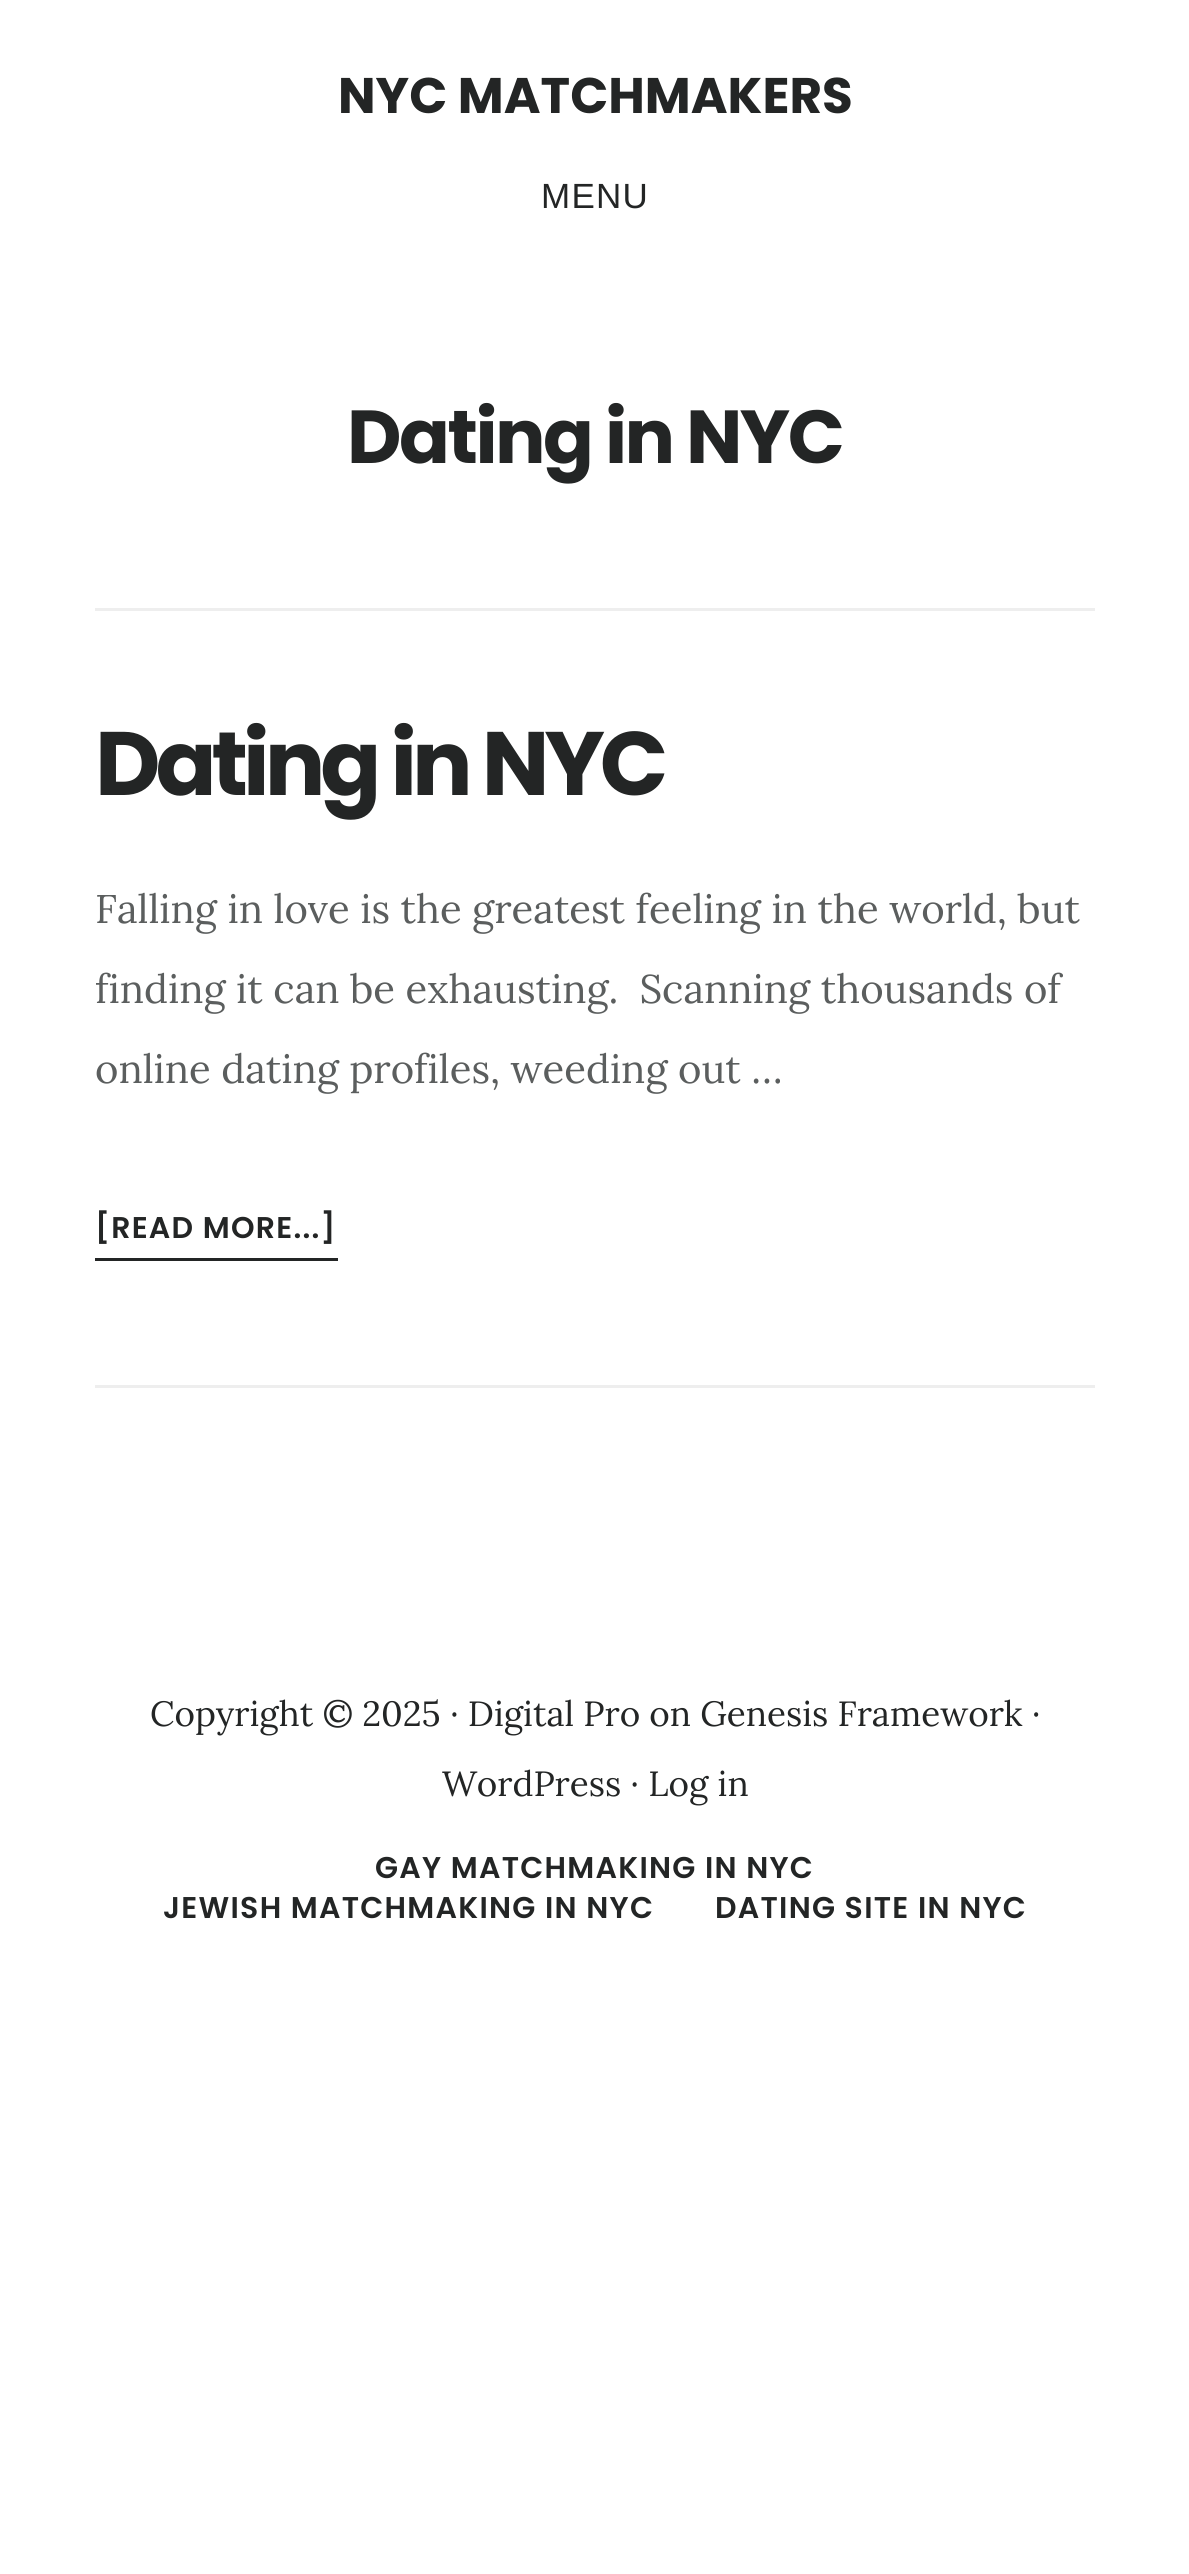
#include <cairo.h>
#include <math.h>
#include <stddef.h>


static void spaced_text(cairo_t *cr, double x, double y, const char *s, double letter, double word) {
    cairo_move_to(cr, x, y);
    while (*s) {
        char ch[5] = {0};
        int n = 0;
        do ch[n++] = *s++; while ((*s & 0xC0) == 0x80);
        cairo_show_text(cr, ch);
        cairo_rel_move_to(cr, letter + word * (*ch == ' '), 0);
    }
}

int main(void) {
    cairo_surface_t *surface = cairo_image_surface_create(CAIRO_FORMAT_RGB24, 1189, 2574);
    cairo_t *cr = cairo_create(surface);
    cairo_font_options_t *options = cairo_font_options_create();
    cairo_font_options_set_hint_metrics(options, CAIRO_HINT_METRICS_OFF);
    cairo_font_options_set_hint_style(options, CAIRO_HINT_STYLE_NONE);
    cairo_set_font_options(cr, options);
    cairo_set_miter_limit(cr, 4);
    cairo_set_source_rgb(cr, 1, 1, 1);
    cairo_paint(cr);
    cairo_select_font_face(cr, "Poppins", CAIRO_FONT_SLANT_NORMAL, CAIRO_FONT_WEIGHT_BOLD);
    cairo_set_font_size(cr, 50);
    cairo_set_source_rgb(cr, 0.137, 0.145, 0.145);
    cairo_move_to(cr, 338, 113);
    cairo_show_text(cr, "NYC MATCHMAKERS");
    cairo_select_font_face(cr, "Liberation Sans", CAIRO_FONT_SLANT_NORMAL, CAIRO_FONT_WEIGHT_NORMAL);
    cairo_set_font_size(cr, 35);
    spaced_text(cr, 541, 208, "MENU", 1.25, 0);
    cairo_set_source_rgb(cr, 0.933, 0.933, 0.933);
    cairo_rectangle(cr, 95, 608, 1000, 3);
    cairo_fill(cr);
    cairo_select_font_face(cr, "Poppins", CAIRO_FONT_SLANT_NORMAL, CAIRO_FONT_WEIGHT_BOLD);
    cairo_set_font_size(cr, 75);
    cairo_set_source_rgb(cr, 0.137, 0.145, 0.145);
    spaced_text(cr, 347, 463, "Dating in NYC", -2.5, 0);
    cairo_set_source_rgb(cr, 0.933, 0.933, 0.933);
    cairo_rectangle(cr, 95, 1385, 1000, 3);
    cairo_fill(cr);
    cairo_set_font_size(cr, 90);
    cairo_set_source_rgb(cr, 0.137, 0.145, 0.145);
    spaced_text(cr, 95, 795, "Dating in NYC", -5, 0);
    cairo_select_font_face(cr, "Lora", CAIRO_FONT_SLANT_NORMAL, CAIRO_FONT_WEIGHT_NORMAL);
    cairo_set_font_size(cr, 40);
    cairo_set_source_rgb(cr, 0.357, 0.369, 0.369);
    cairo_move_to(cr, 95, 923);
    cairo_show_text(cr, "Falling in love is the greatest feeling in the world, but");
    cairo_move_to(cr, 95, 1003);
    cairo_show_text(cr, "finding it can be exhausting.  Scanning thousands of");
    cairo_move_to(cr, 95, 1083);
    cairo_show_text(cr, "online dating profiles, weeding out …");
    cairo_set_source_rgb(cr, 0.137, 0.145, 0.145);
    cairo_rectangle(cr, 95, 1258, 243, 3);
    cairo_fill(cr);
    cairo_select_font_face(cr, "Poppins SemiBold", CAIRO_FONT_SLANT_NORMAL, CAIRO_FONT_WEIGHT_NORMAL);
    cairo_set_font_size(cr, 30);
    spaced_text(cr, 95, 1238, "[READ MORE...]", 1.25, 0);
    cairo_select_font_face(cr, "Lora", CAIRO_FONT_SLANT_NORMAL, CAIRO_FONT_WEIGHT_NORMAL);
    cairo_set_font_size(cr, 35);
    cairo_move_to(cr, 150, 1726);
    cairo_show_text(cr, "Copyright © 2025 · Digital Pro on Genesis Framework ·");
    cairo_move_to(cr, 442, 1796);
    cairo_show_text(cr, "WordPress · Log in");
    cairo_select_font_face(cr, "Poppins SemiBold", CAIRO_FONT_SLANT_NORMAL, CAIRO_FONT_WEIGHT_NORMAL);
    cairo_set_font_size(cr, 30);
    spaced_text(cr, 375, 1878, "GAY MATCHMAKING IN NYC", 1.25, 0);
    spaced_text(cr, 163, 1918, "JEWISH MATCHMAKING IN NYC", 1.25, 0);
    spaced_text(cr, 715, 1918, "DATING SITE IN NYC", 1.25, 0);
    cairo_surface_write_to_png(surface, "page.png");
    cairo_font_options_destroy(options);
    cairo_destroy(cr);
    cairo_surface_destroy(surface);
    return 0;
}
